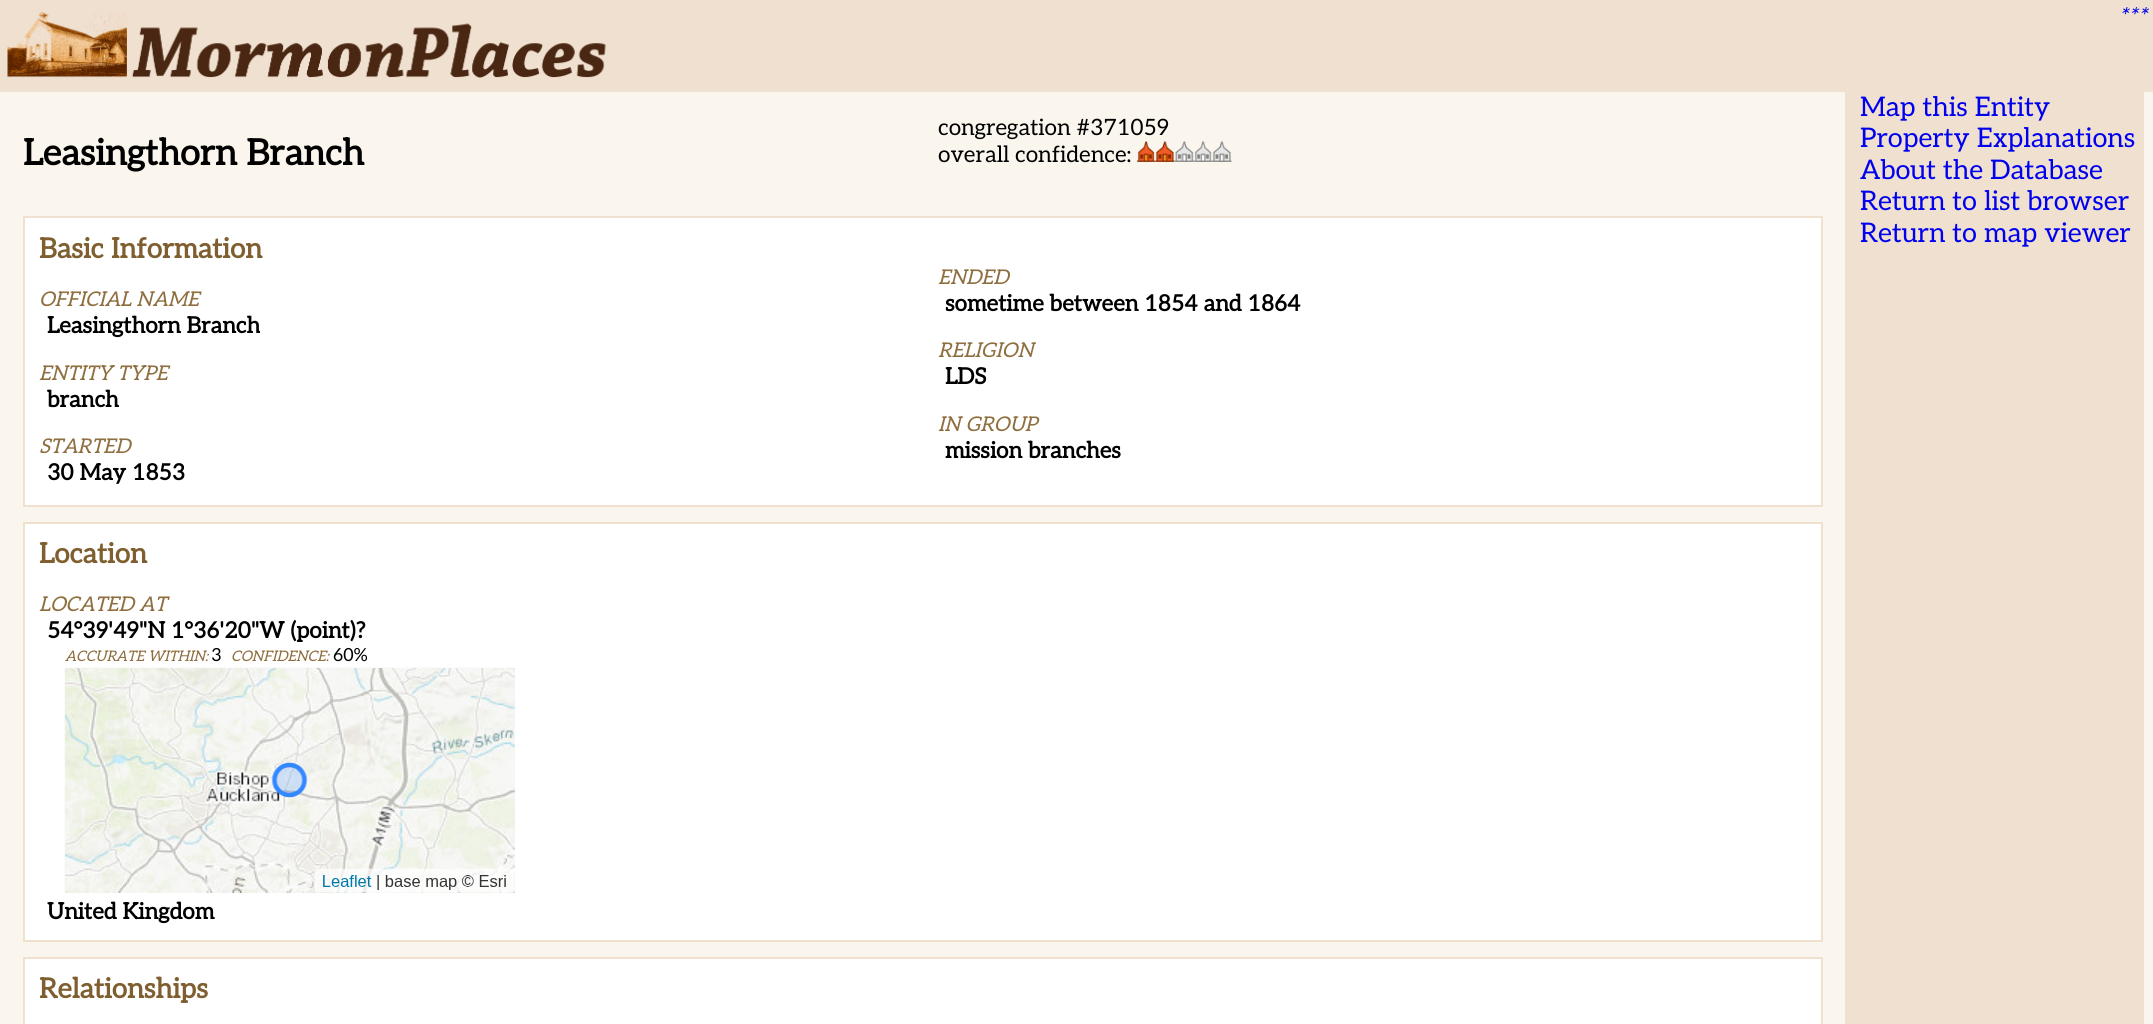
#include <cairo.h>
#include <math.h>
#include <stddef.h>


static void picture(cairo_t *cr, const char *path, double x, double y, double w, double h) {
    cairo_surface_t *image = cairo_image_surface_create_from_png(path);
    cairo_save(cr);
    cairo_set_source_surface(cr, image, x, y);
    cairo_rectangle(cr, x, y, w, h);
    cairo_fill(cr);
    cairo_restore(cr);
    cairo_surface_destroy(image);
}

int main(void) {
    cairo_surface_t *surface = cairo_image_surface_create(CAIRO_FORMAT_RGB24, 2153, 1024);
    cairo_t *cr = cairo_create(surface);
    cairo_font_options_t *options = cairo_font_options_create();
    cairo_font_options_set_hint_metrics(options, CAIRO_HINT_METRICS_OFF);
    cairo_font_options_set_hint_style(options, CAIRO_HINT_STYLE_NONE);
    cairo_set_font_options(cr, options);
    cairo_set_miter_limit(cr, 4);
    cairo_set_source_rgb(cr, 0.98, 0.961, 0.929);
    cairo_paint(cr);
    cairo_set_source_rgb(cr, 0.941, 0.878, 0.816);
    cairo_rectangle(cr, 0, 0, 2153, 92);
    cairo_fill(cr);
    picture(cr, "img1.png", 7, 10, 599, 68);
    cairo_select_font_face(cr, "Aleo", CAIRO_FONT_SLANT_ITALIC, CAIRO_FONT_WEIGHT_NORMAL);
    cairo_set_font_size(cr, 22.5);
    cairo_set_source_rgb(cr, 0, 0, 0.933);
    cairo_move_to(cr, 2118, 24);
    cairo_show_text(cr, "***");
    cairo_select_font_face(cr, "Aleo", CAIRO_FONT_SLANT_NORMAL, CAIRO_FONT_WEIGHT_BOLD);
    cairo_set_font_size(cr, 36);
    cairo_set_source_rgb(cr, 0, 0, 0);
    cairo_move_to(cr, 23, 165);
    cairo_show_text(cr, "Leasingthorn Branch");
    cairo_select_font_face(cr, "Aleo", CAIRO_FONT_SLANT_NORMAL, CAIRO_FONT_WEIGHT_NORMAL);
    cairo_set_font_size(cr, 22.5);
    cairo_move_to(cr, 938, 135);
    cairo_show_text(cr, "congregation #371059");
    cairo_move_to(cr, 938, 162);
    cairo_show_text(cr, "overall confidence:");
    picture(cr, "img2.png", 1137, 141, 18, 21);
    picture(cr, "img3.png", 1155, 141, 20, 21);
    picture(cr, "img4.png", 1174, 141, 20, 21);
    picture(cr, "img5.png", 1194, 141, 18, 21);
    picture(cr, "img6.png", 1212, 141, 20, 21);
    cairo_set_source_rgb(cr, 1, 1, 1);
    cairo_rectangle(cr, 24, 217, 1798, 289);
    cairo_fill_preserve(cr);
    cairo_set_source_rgb(cr, 0.941, 0.878, 0.816);
    cairo_stroke(cr);
    cairo_select_font_face(cr, "Aleo", CAIRO_FONT_SLANT_NORMAL, CAIRO_FONT_WEIGHT_BOLD);
    cairo_set_font_size(cr, 27.75);
    cairo_set_source_rgb(cr, 0.498, 0.373, 0.184);
    cairo_move_to(cr, 39, 258);
    cairo_show_text(cr, "Basic Information");
    cairo_select_font_face(cr, "Aleo", CAIRO_FONT_SLANT_ITALIC, CAIRO_FONT_WEIGHT_NORMAL);
    cairo_set_font_size(cr, 20.25);
    cairo_set_source_rgb(cr, 0.561, 0.435, 0.247);
    cairo_move_to(cr, 39, 306);
    cairo_show_text(cr, "OFFICIAL NAME");
    cairo_select_font_face(cr, "Aleo", CAIRO_FONT_SLANT_NORMAL, CAIRO_FONT_WEIGHT_BOLD);
    cairo_set_font_size(cr, 22.5);
    cairo_set_source_rgb(cr, 0, 0, 0);
    cairo_move_to(cr, 47, 333);
    cairo_show_text(cr, "Leasingthorn Branch");
    cairo_select_font_face(cr, "Aleo", CAIRO_FONT_SLANT_ITALIC, CAIRO_FONT_WEIGHT_NORMAL);
    cairo_set_font_size(cr, 20.25);
    cairo_set_source_rgb(cr, 0.561, 0.435, 0.247);
    cairo_move_to(cr, 938, 284);
    cairo_show_text(cr, "ENDED");
    cairo_select_font_face(cr, "Aleo", CAIRO_FONT_SLANT_NORMAL, CAIRO_FONT_WEIGHT_BOLD);
    cairo_set_font_size(cr, 22.5);
    cairo_set_source_rgb(cr, 0, 0, 0);
    cairo_move_to(cr, 945, 311);
    cairo_show_text(cr, "sometime between 1854 and 1864");
    cairo_select_font_face(cr, "Aleo", CAIRO_FONT_SLANT_ITALIC, CAIRO_FONT_WEIGHT_NORMAL);
    cairo_set_font_size(cr, 20.25);
    cairo_set_source_rgb(cr, 0.561, 0.435, 0.247);
    cairo_move_to(cr, 39, 380);
    cairo_show_text(cr, "ENTITY TYPE");
    cairo_select_font_face(cr, "Aleo", CAIRO_FONT_SLANT_NORMAL, CAIRO_FONT_WEIGHT_BOLD);
    cairo_set_font_size(cr, 22.5);
    cairo_set_source_rgb(cr, 0, 0, 0);
    cairo_move_to(cr, 47, 407);
    cairo_show_text(cr, "branch");
    cairo_select_font_face(cr, "Aleo", CAIRO_FONT_SLANT_ITALIC, CAIRO_FONT_WEIGHT_NORMAL);
    cairo_set_font_size(cr, 20.25);
    cairo_set_source_rgb(cr, 0.561, 0.435, 0.247);
    cairo_move_to(cr, 938, 357);
    cairo_show_text(cr, "RELIGION");
    cairo_select_font_face(cr, "Aleo", CAIRO_FONT_SLANT_NORMAL, CAIRO_FONT_WEIGHT_BOLD);
    cairo_set_font_size(cr, 22.5);
    cairo_set_source_rgb(cr, 0, 0, 0);
    cairo_move_to(cr, 945, 384);
    cairo_show_text(cr, "LDS");
    cairo_select_font_face(cr, "Aleo", CAIRO_FONT_SLANT_ITALIC, CAIRO_FONT_WEIGHT_NORMAL);
    cairo_set_font_size(cr, 20.25);
    cairo_set_source_rgb(cr, 0.561, 0.435, 0.247);
    cairo_move_to(cr, 39, 453);
    cairo_show_text(cr, "STARTED");
    cairo_select_font_face(cr, "Aleo", CAIRO_FONT_SLANT_NORMAL, CAIRO_FONT_WEIGHT_BOLD);
    cairo_set_font_size(cr, 22.5);
    cairo_set_source_rgb(cr, 0, 0, 0);
    cairo_move_to(cr, 47, 480);
    cairo_show_text(cr, "30 May 1853");
    cairo_select_font_face(cr, "Aleo", CAIRO_FONT_SLANT_ITALIC, CAIRO_FONT_WEIGHT_NORMAL);
    cairo_set_font_size(cr, 20.25);
    cairo_set_source_rgb(cr, 0.561, 0.435, 0.247);
    cairo_move_to(cr, 938, 431);
    cairo_show_text(cr, "IN GROUP");
    cairo_select_font_face(cr, "Aleo", CAIRO_FONT_SLANT_NORMAL, CAIRO_FONT_WEIGHT_BOLD);
    cairo_set_font_size(cr, 22.5);
    cairo_set_source_rgb(cr, 0, 0, 0);
    cairo_move_to(cr, 945, 458);
    cairo_show_text(cr, "mission branches");
    cairo_set_source_rgb(cr, 1, 1, 1);
    cairo_rectangle(cr, 24, 523, 1798, 418);
    cairo_fill_preserve(cr);
    cairo_set_source_rgb(cr, 0.941, 0.878, 0.816);
    cairo_stroke(cr);
    cairo_set_font_size(cr, 27.75);
    cairo_set_source_rgb(cr, 0.498, 0.373, 0.184);
    cairo_move_to(cr, 39, 563);
    cairo_show_text(cr, "Location");
    cairo_select_font_face(cr, "Aleo", CAIRO_FONT_SLANT_ITALIC, CAIRO_FONT_WEIGHT_NORMAL);
    cairo_set_font_size(cr, 20.25);
    cairo_set_source_rgb(cr, 0.561, 0.435, 0.247);
    cairo_move_to(cr, 39, 611);
    cairo_show_text(cr, "LOCATED AT");
    cairo_select_font_face(cr, "Aleo", CAIRO_FONT_SLANT_NORMAL, CAIRO_FONT_WEIGHT_BOLD);
    cairo_set_font_size(cr, 22.5);
    cairo_set_source_rgb(cr, 0, 0, 0);
    cairo_move_to(cr, 47, 638);
    cairo_show_text(cr, "54°39'49\"N 1°36'20\"W (point)?");
    cairo_select_font_face(cr, "Aleo", CAIRO_FONT_SLANT_ITALIC, CAIRO_FONT_WEIGHT_NORMAL);
    cairo_set_font_size(cr, 14.5);
    cairo_set_source_rgb(cr, 0.561, 0.435, 0.247);
    cairo_move_to(cr, 65, 661);
    cairo_show_text(cr, "ACCURATE WITHIN:");
    cairo_select_font_face(cr, "Aleo", CAIRO_FONT_SLANT_NORMAL, CAIRO_FONT_WEIGHT_NORMAL);
    cairo_set_font_size(cr, 18);
    cairo_set_source_rgb(cr, 0, 0, 0);
    cairo_move_to(cr, 211, 661);
    cairo_show_text(cr, "3");
    cairo_select_font_face(cr, "Aleo", CAIRO_FONT_SLANT_ITALIC, CAIRO_FONT_WEIGHT_NORMAL);
    cairo_set_font_size(cr, 14.5);
    cairo_set_source_rgb(cr, 0.561, 0.435, 0.247);
    cairo_move_to(cr, 231, 661);
    cairo_show_text(cr, "CONFIDENCE:");
    cairo_select_font_face(cr, "Aleo", CAIRO_FONT_SLANT_NORMAL, CAIRO_FONT_WEIGHT_NORMAL);
    cairo_set_font_size(cr, 18);
    cairo_set_source_rgb(cr, 0, 0, 0);
    cairo_move_to(cr, 333, 661);
    cairo_show_text(cr, "60%");
    picture(cr, "img7.png", 64, 667, 451, 226);
    cairo_select_font_face(cr, "Aleo", CAIRO_FONT_SLANT_NORMAL, CAIRO_FONT_WEIGHT_BOLD);
    cairo_set_font_size(cr, 22.5);
    cairo_move_to(cr, 47, 919);
    cairo_show_text(cr, "United Kingdom");
    cairo_set_source_rgb(cr, 1, 1, 1);
    cairo_rectangle(cr, 24, 958, 1798, 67);
    cairo_fill_preserve(cr);
    cairo_set_source_rgb(cr, 0.941, 0.878, 0.816);
    cairo_stroke(cr);
    cairo_set_font_size(cr, 27.75);
    cairo_set_source_rgb(cr, 0.498, 0.373, 0.184);
    cairo_move_to(cr, 39, 998);
    cairo_show_text(cr, "Relationships");
    cairo_set_source_rgb(cr, 0.941, 0.878, 0.816);
    cairo_rectangle(cr, 1845, 92, 299, 932);
    cairo_fill(cr);
    cairo_select_font_face(cr, "Aleo", CAIRO_FONT_SLANT_NORMAL, CAIRO_FONT_WEIGHT_NORMAL);
    cairo_set_font_size(cr, 27);
    cairo_set_source_rgb(cr, 0, 0, 0.933);
    cairo_move_to(cr, 1860, 116);
    cairo_show_text(cr, "Map this Entity");
    cairo_move_to(cr, 1860, 147);
    cairo_show_text(cr, "Property Explanations");
    cairo_move_to(cr, 1860, 179);
    cairo_show_text(cr, "About the Database");
    cairo_move_to(cr, 1860, 210);
    cairo_show_text(cr, "Return to list browser");
    cairo_move_to(cr, 1860, 242);
    cairo_show_text(cr, "Return to map viewer");
    cairo_surface_write_to_png(surface, "page.png");
    cairo_font_options_destroy(options);
    cairo_destroy(cr);
    cairo_surface_destroy(surface);
    return 0;
}
